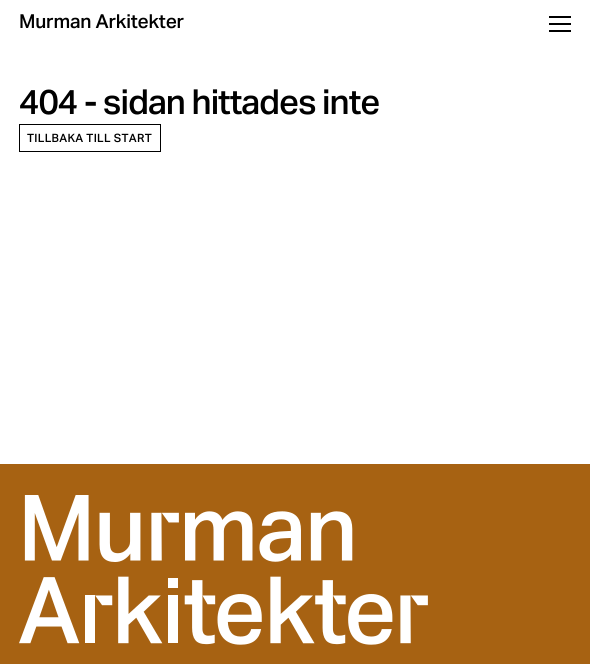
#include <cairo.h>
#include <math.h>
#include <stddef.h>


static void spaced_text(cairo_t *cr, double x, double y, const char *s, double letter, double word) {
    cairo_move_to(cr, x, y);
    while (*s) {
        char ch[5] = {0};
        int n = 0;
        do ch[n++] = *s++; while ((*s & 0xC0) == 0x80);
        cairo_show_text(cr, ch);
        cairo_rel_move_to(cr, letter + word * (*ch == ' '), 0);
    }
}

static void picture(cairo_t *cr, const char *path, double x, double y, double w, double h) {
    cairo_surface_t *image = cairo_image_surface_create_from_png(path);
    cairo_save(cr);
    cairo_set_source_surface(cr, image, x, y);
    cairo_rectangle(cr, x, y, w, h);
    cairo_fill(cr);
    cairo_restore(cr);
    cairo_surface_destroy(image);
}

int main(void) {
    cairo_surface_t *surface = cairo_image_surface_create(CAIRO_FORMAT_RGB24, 590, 664);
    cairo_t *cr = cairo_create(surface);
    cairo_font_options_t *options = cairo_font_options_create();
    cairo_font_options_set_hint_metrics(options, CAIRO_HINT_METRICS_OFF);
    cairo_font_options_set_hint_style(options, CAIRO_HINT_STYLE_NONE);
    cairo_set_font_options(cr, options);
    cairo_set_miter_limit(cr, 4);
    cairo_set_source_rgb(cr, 0.655, 0.384, 0.071);
    cairo_paint(cr);
    cairo_set_source_rgb(cr, 1, 1, 1);
    cairo_rectangle(cr, 0, 0, 590, 464);
    cairo_fill(cr);
    cairo_select_font_face(cr, "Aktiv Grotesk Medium", CAIRO_FONT_SLANT_NORMAL, CAIRO_FONT_WEIGHT_NORMAL);
    cairo_set_font_size(cr, 19.25);
    cairo_set_source_rgb(cr, 0, 0, 0);
    spaced_text(cr, 19, 28, "Murman Arkitekter", -0.2, 0);
    cairo_rectangle(cr, 549, 16, 22, 2);
    cairo_fill(cr);
    cairo_rectangle(cr, 549, 23, 22, 2);
    cairo_fill(cr);
    cairo_rectangle(cr, 549, 30, 22, 2);
    cairo_fill(cr);
    cairo_set_font_size(cr, 34.5);
    spaced_text(cr, 19, 114, "404 - sidan hittades inte", -1, 0);
    cairo_rectangle(cr, 19.5, 124.5, 141, 27);
    cairo_set_line_width(cr, 1);
    cairo_stroke(cr);
    cairo_set_font_size(cr, 11.5);
    spaced_text(cr, 27, 142, "TILLBAKA TILL START", 0.3, 0);
    picture(cr, "img1.png", 19, 495, 409, 150);
    cairo_surface_write_to_png(surface, "page.png");
    cairo_font_options_destroy(options);
    cairo_destroy(cr);
    cairo_surface_destroy(surface);
    return 0;
}
